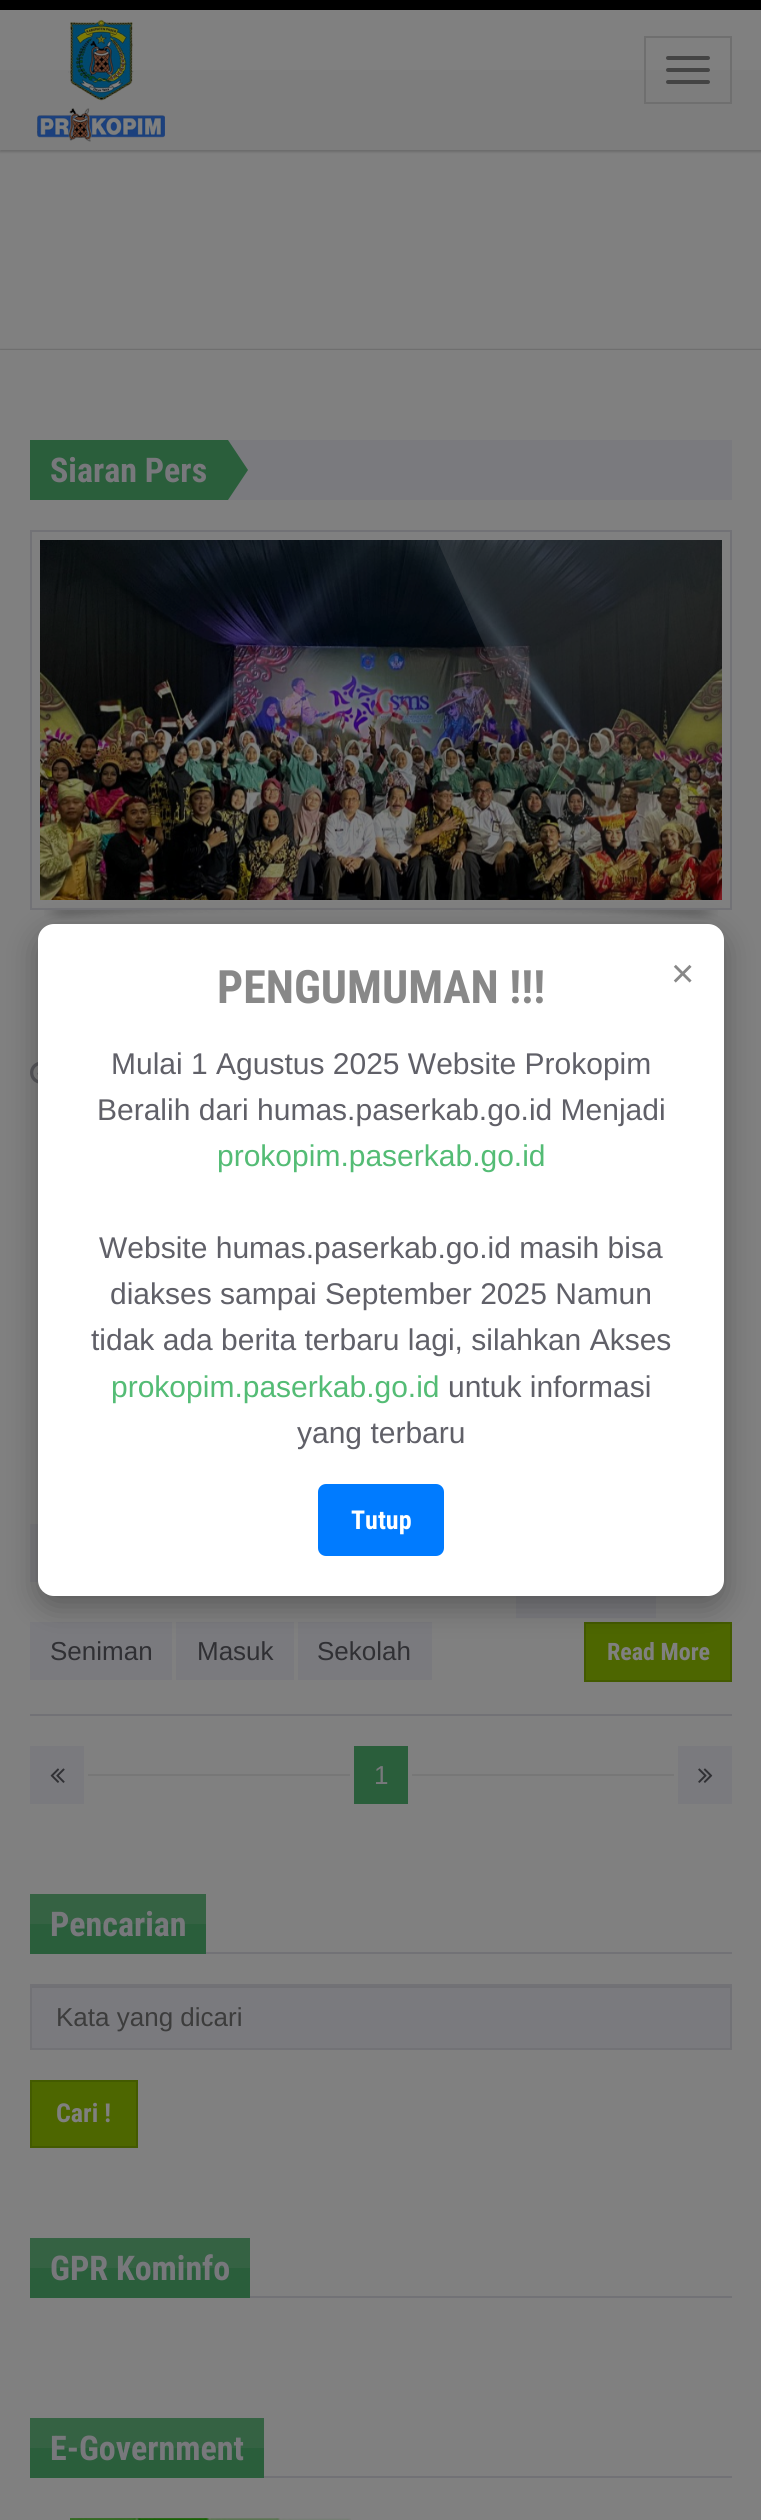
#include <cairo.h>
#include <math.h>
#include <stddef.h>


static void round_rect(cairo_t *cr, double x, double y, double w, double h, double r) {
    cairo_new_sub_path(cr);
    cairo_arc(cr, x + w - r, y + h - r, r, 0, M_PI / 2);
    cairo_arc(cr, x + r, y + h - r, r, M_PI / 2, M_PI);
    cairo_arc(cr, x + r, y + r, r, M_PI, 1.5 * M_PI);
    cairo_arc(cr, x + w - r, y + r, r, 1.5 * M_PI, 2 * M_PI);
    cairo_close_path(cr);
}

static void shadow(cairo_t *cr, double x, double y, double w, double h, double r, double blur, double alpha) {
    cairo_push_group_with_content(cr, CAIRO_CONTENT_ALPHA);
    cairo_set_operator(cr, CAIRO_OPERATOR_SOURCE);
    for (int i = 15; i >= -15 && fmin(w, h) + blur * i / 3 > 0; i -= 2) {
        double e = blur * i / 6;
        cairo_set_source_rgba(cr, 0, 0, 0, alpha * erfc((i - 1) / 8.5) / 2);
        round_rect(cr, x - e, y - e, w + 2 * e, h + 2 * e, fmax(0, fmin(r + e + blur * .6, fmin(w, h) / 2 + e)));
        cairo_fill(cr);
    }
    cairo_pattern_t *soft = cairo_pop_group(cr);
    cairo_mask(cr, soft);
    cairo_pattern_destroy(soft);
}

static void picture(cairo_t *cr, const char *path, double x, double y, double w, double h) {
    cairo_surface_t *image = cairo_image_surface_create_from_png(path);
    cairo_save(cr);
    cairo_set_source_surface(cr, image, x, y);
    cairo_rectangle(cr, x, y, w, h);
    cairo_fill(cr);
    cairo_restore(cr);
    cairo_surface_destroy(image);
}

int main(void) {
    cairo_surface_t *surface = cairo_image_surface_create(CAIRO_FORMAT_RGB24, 761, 2520);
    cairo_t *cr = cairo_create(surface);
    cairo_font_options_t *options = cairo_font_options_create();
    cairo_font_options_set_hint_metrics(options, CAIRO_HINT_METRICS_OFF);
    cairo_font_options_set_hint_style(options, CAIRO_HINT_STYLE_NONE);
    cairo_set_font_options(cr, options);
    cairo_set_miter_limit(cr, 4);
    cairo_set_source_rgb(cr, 0.502, 0.502, 0.502);
    cairo_paint(cr);
    cairo_set_source_rgb(cr, 0, 0, 0);
    shadow(cr, 0, 2, 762, 150, 0, 1, 0.16);
    cairo_set_source_rgb(cr, 0.49, 0.49, 0.49);
    cairo_rectangle(cr, 0, 70, 761, 80);
    cairo_fill(cr);
    cairo_set_source_rgb(cr, 0.502, 0.502, 0.502);
    cairo_rectangle(cr, 0, 10, 761, 60);
    cairo_fill(cr);
    cairo_set_source_rgb(cr, 0, 0, 0);
    cairo_rectangle(cr, 0, 0, 761, 10);
    cairo_fill(cr);
    picture(cr, "img1.png", 37, 19, 128, 123);
    cairo_rectangle(cr, 645, 37, 86, 66);
    cairo_set_source_rgb(cr, 0.435, 0.435, 0.435);
    cairo_stroke(cr);
    cairo_set_source_rgb(cr, 0.267, 0.267, 0.267);
    round_rect(cr, 666, 56, 44, 4, 2);
    cairo_fill(cr);
    round_rect(cr, 666, 68, 44, 4, 2);
    cairo_fill(cr);
    round_rect(cr, 666, 80, 44, 4, 2);
    cairo_fill(cr);
    cairo_set_source_rgb(cr, 0, 0, 0);
    shadow(cr, 0, 350, 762, 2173, 0, 1, 0.4);
    cairo_set_source_rgb(cr, 0.502, 0.502, 0.502);
    cairo_rectangle(cr, 0, 350, 761, 2170);
    cairo_fill(cr);
    cairo_set_source_rgb(cr, 0.165, 0.369, 0.231);
    cairo_rectangle(cr, 30, 440, 198, 60);
    cairo_fill(cr);
    cairo_select_font_face(cr, "Roboto Condensed", CAIRO_FONT_SLANT_NORMAL, CAIRO_FONT_WEIGHT_BOLD);
    cairo_set_font_size(cr, 34);
    cairo_set_source_rgb(cr, 0.471, 0.471, 0.486);
    cairo_move_to(cr, 50, 482);
    cairo_show_text(cr, "Siaran Pers");
    cairo_set_source_rgb(cr, 0.478, 0.478, 0.494);
    cairo_rectangle(cr, 228, 440, 504, 60);
    cairo_fill(cr);
    cairo_set_source_rgb(cr, 0.165, 0.369, 0.231);
    cairo_new_path(cr);
    cairo_move_to(cr, 228, 500);
    cairo_line_to(cr, 228, 440);
    cairo_line_to(cr, 248, 470);
    cairo_close_path(cr);
    cairo_fill(cr);
    cairo_rectangle(cr, 31, 531, 700, 378);
    cairo_set_source_rgb(cr, 0.447, 0.447, 0.463);
    cairo_stroke(cr);
    picture(cr, "img2.png", 40, 540, 682, 360);
    picture(cr, "img3.png", 44, 910, 674, 10);
    picture(cr, "img4.png", 30, 1062, 8, 22);
    cairo_set_source_rgb(cr, 0.478, 0.478, 0.494);
    cairo_rectangle(cr, 30, 1524, 9, 58);
    cairo_fill(cr);
    cairo_rectangle(cr, 516, 1596, 140, 22);
    cairo_fill(cr);
    cairo_rectangle(cr, 30, 1622, 142, 58);
    cairo_fill(cr);
    cairo_select_font_face(cr, "Liberation Sans", CAIRO_FONT_SLANT_NORMAL, CAIRO_FONT_WEIGHT_NORMAL);
    cairo_set_font_size(cr, 26);
    cairo_set_source_rgb(cr, 0.188, 0.188, 0.204);
    cairo_move_to(cr, 50, 1660);
    cairo_show_text(cr, "Seniman");
    cairo_set_source_rgb(cr, 0.478, 0.478, 0.494);
    cairo_rectangle(cr, 176, 1622, 118, 58);
    cairo_fill(cr);
    cairo_set_source_rgb(cr, 0.188, 0.188, 0.204);
    cairo_move_to(cr, 197, 1660);
    cairo_show_text(cr, "Masuk");
    cairo_set_source_rgb(cr, 0.478, 0.478, 0.494);
    cairo_rectangle(cr, 298, 1622, 134, 58);
    cairo_fill(cr);
    cairo_set_source_rgb(cr, 0.188, 0.188, 0.204);
    cairo_move_to(cr, 317, 1660);
    cairo_show_text(cr, "Sekolah");
    cairo_set_source_rgb(cr, 0.302, 0.4, 0);
    cairo_rectangle(cr, 585, 1623, 146, 58);
    cairo_fill_preserve(cr);
    cairo_set_source_rgb(cr, 0.263, 0.353, 0);
    cairo_stroke(cr);
    cairo_select_font_face(cr, "Roboto Condensed", CAIRO_FONT_SLANT_NORMAL, CAIRO_FONT_WEIGHT_BOLD);
    cairo_set_font_size(cr, 24);
    cairo_set_source_rgb(cr, 0.502, 0.502, 0.502);
    cairo_move_to(cr, 607, 1660);
    cairo_show_text(cr, "Read More");
    cairo_set_source_rgb(cr, 0.447, 0.447, 0.463);
    cairo_rectangle(cr, 30, 1714, 702, 2);
    cairo_fill(cr);
    cairo_set_source_rgb(cr, 0.478, 0.478, 0.494);
    cairo_rectangle(cr, 30, 1746, 54, 58);
    cairo_fill(cr);
    picture(cr, "img5.png", 50, 1768, 15, 15);
    cairo_set_source_rgb(cr, 0.467, 0.467, 0.467);
    cairo_rectangle(cr, 88, 1774, 262, 2);
    cairo_fill(cr);
    cairo_set_source_rgb(cr, 0.165, 0.369, 0.231);
    cairo_rectangle(cr, 354, 1746, 54, 58);
    cairo_fill(cr);
    cairo_select_font_face(cr, "Liberation Sans", CAIRO_FONT_SLANT_NORMAL, CAIRO_FONT_WEIGHT_NORMAL);
    cairo_set_font_size(cr, 26);
    cairo_set_source_rgb(cr, 0.471, 0.471, 0.486);
    cairo_move_to(cr, 374, 1784);
    cairo_show_text(cr, "1");
    cairo_set_source_rgb(cr, 0.467, 0.467, 0.467);
    cairo_rectangle(cr, 412, 1774, 262, 2);
    cairo_fill(cr);
    cairo_set_source_rgb(cr, 0.478, 0.478, 0.494);
    cairo_rectangle(cr, 678, 1746, 54, 58);
    cairo_fill(cr);
    picture(cr, "img6.png", 698, 1768, 15, 15);
    cairo_set_source_rgb(cr, 0.447, 0.447, 0.463);
    cairo_rectangle(cr, 206, 1952, 526, 2);
    cairo_fill(cr);
    cairo_set_source_rgb(cr, 0.165, 0.369, 0.231);
    cairo_rectangle(cr, 30, 1924, 176, 30);
    cairo_fill(cr);
    cairo_set_source_rgb(cr, 0.208, 0.384, 0.263);
    cairo_rectangle(cr, 30, 1894, 176, 30);
    cairo_fill(cr);
    cairo_select_font_face(cr, "Roboto Condensed", CAIRO_FONT_SLANT_NORMAL, CAIRO_FONT_WEIGHT_BOLD);
    cairo_set_font_size(cr, 34);
    cairo_set_source_rgb(cr, 0.471, 0.471, 0.486);
    cairo_move_to(cr, 50, 1936);
    cairo_show_text(cr, "Pencarian");
    cairo_set_source_rgb(cr, 0.478, 0.478, 0.494);
    cairo_rectangle(cr, 32, 1988, 698, 60);
    cairo_fill(cr);
    cairo_set_source_rgb(cr, 0.443, 0.443, 0.459);
    cairo_rectangle(cr, 32, 1986, 698, 2);
    cairo_fill(cr);
    cairo_rectangle(cr, 31, 1985, 700, 64);
    cairo_set_source_rgb(cr, 0.447, 0.447, 0.463);
    cairo_stroke(cr);
    cairo_select_font_face(cr, "Liberation Sans", CAIRO_FONT_SLANT_NORMAL, CAIRO_FONT_WEIGHT_NORMAL);
    cairo_set_font_size(cr, 26);
    cairo_set_source_rgb(cr, 0.235, 0.235, 0.235);
    cairo_move_to(cr, 56, 2026);
    cairo_show_text(cr, "Kata yang dicari");
    cairo_set_source_rgb(cr, 0.302, 0.4, 0);
    cairo_rectangle(cr, 31, 2081, 106, 66);
    cairo_fill_preserve(cr);
    cairo_set_source_rgb(cr, 0.263, 0.353, 0);
    cairo_stroke(cr);
    cairo_select_font_face(cr, "Roboto Condensed", CAIRO_FONT_SLANT_NORMAL, CAIRO_FONT_WEIGHT_BOLD);
    cairo_set_source_rgb(cr, 0.502, 0.502, 0.502);
    cairo_move_to(cr, 56, 2122);
    cairo_show_text(cr, "Cari !");
    cairo_set_source_rgb(cr, 0.447, 0.447, 0.463);
    cairo_rectangle(cr, 250, 2296, 482, 2);
    cairo_fill(cr);
    cairo_set_source_rgb(cr, 0.165, 0.369, 0.231);
    cairo_rectangle(cr, 30, 2268, 220, 30);
    cairo_fill(cr);
    cairo_set_source_rgb(cr, 0.208, 0.384, 0.263);
    cairo_rectangle(cr, 30, 2238, 220, 30);
    cairo_fill(cr);
    cairo_set_font_size(cr, 34);
    cairo_set_source_rgb(cr, 0.471, 0.471, 0.486);
    cairo_move_to(cr, 50, 2280);
    cairo_show_text(cr, "GPR Kominfo");
    cairo_set_source_rgb(cr, 0.447, 0.447, 0.463);
    cairo_rectangle(cr, 264, 2476, 468, 2);
    cairo_fill(cr);
    cairo_set_source_rgb(cr, 0.165, 0.369, 0.231);
    cairo_rectangle(cr, 30, 2448, 234, 30);
    cairo_fill(cr);
    cairo_set_source_rgb(cr, 0.208, 0.384, 0.263);
    cairo_rectangle(cr, 30, 2418, 234, 30);
    cairo_fill(cr);
    cairo_set_source_rgb(cr, 0.471, 0.471, 0.486);
    cairo_move_to(cr, 50, 2460);
    cairo_show_text(cr, "E-Government");
    picture(cr, "img7.png", 70, 2518, 281, 2);
    cairo_set_source_rgb(cr, 0, 0, 0);
    shadow(cr, 38, 934, 686, 672, 16, 15, 0.3);
    cairo_set_source_rgb(cr, 1, 1, 1);
    round_rect(cr, 38, 924, 686, 672, 16);
    cairo_fill(cr);
    cairo_set_font_size(cr, 46);
    cairo_set_source_rgb(cr, 0.533, 0.533, 0.533);
    cairo_move_to(cr, 217, 1003);
    cairo_show_text(cr, "PENGUMUMAN !!!");
    cairo_select_font_face(cr, "Liberation Sans", CAIRO_FONT_SLANT_NORMAL, CAIRO_FONT_WEIGHT_NORMAL);
    cairo_set_font_size(cr, 40);
    cairo_move_to(cr, 671, 987);
    cairo_show_text(cr, "×");
    cairo_set_font_size(cr, 30);
    cairo_set_source_rgb(cr, 0.376, 0.376, 0.408);
    cairo_move_to(cr, 111, 1074);
    cairo_show_text(cr, "Mulai 1 Agustus 2025 Website Prokopim");
    cairo_move_to(cr, 97, 1120);
    cairo_show_text(cr, "Beralih dari humas.paserkab.go.id Menjadi");
    cairo_set_source_rgb(cr, 0.329, 0.737, 0.459);
    cairo_move_to(cr, 217, 1166);
    cairo_show_text(cr, "prokopim.paserkab.go.id");
    cairo_set_source_rgb(cr, 0.376, 0.376, 0.408);
    cairo_move_to(cr, 99, 1258);
    cairo_show_text(cr, "Website humas.paserkab.go.id masih bisa");
    cairo_move_to(cr, 110, 1304);
    cairo_show_text(cr, "diakses sampai September 2025 Namun");
    cairo_move_to(cr, 91, 1350);
    cairo_show_text(cr, "tidak ada berita terbaru lagi, silahkan Akses");
    cairo_set_source_rgb(cr, 0.329, 0.737, 0.459);
    cairo_move_to(cr, 111, 1397);
    cairo_show_text(cr, "prokopim.paserkab.go.id");
    cairo_set_source_rgb(cr, 0.376, 0.376, 0.408);
    cairo_move_to(cr, 448, 1397);
    cairo_show_text(cr, "untuk informasi");
    cairo_move_to(cr, 297, 1443);
    cairo_show_text(cr, "yang terbaru");
    cairo_set_source_rgb(cr, 0, 0.482, 1);
    round_rect(cr, 318, 1484, 126, 72, 8);
    cairo_fill(cr);
    cairo_select_font_face(cr, "Roboto Condensed", CAIRO_FONT_SLANT_NORMAL, CAIRO_FONT_WEIGHT_BOLD);
    cairo_set_font_size(cr, 26);
    cairo_set_source_rgb(cr, 1, 1, 1);
    cairo_move_to(cr, 351, 1529);
    cairo_show_text(cr, "Tutup");
    cairo_surface_write_to_png(surface, "page.png");
    cairo_font_options_destroy(options);
    cairo_destroy(cr);
    cairo_surface_destroy(surface);
    return 0;
}
